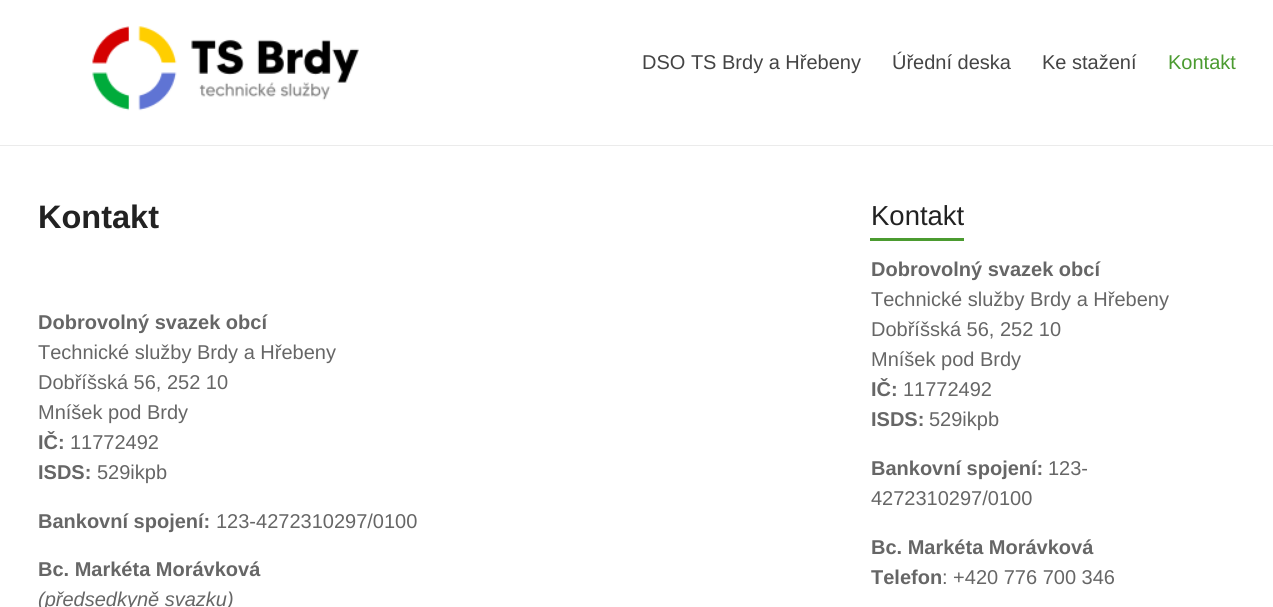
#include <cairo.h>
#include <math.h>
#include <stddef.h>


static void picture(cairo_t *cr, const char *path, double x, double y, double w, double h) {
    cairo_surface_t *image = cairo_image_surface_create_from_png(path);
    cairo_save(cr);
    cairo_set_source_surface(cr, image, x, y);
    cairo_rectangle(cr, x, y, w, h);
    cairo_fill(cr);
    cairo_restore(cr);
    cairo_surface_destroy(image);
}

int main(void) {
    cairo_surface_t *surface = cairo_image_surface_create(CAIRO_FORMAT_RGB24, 1273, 607);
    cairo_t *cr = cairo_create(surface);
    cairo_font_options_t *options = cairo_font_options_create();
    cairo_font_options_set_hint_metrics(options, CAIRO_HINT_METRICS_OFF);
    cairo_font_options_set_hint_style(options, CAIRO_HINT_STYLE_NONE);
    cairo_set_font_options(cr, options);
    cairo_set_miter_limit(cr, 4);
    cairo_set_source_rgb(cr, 1, 1, 1);
    cairo_paint(cr);
    cairo_set_source_rgb(cr, 0.918, 0.918, 0.918);
    cairo_rectangle(cr, 0, 145, 1273, 1);
    cairo_fill(cr);
    picture(cr, "img1.png", 92, 26, 267, 85);
    cairo_select_font_face(cr, "Liberation Sans", CAIRO_FONT_SLANT_NORMAL, CAIRO_FONT_WEIGHT_NORMAL);
    cairo_set_font_size(cr, 20);
    cairo_set_source_rgb(cr, 0.267, 0.267, 0.267);
    cairo_move_to(cr, 642, 69);
    cairo_show_text(cr, "DSO TS Brdy a Hřebeny");
    cairo_move_to(cr, 892, 69);
    cairo_show_text(cr, "Úřední deska");
    cairo_move_to(cr, 1042, 69);
    cairo_show_text(cr, "Ke stažení");
    cairo_set_source_rgb(cr, 0.294, 0.608, 0.188);
    cairo_move_to(cr, 1168, 69);
    cairo_show_text(cr, "Kontakt");
    cairo_select_font_face(cr, "Liberation Sans", CAIRO_FONT_SLANT_NORMAL, CAIRO_FONT_WEIGHT_BOLD);
    cairo_set_font_size(cr, 32.5);
    cairo_set_source_rgb(cr, 0.133, 0.133, 0.133);
    cairo_move_to(cr, 38, 228);
    cairo_show_text(cr, "Kontakt");
    cairo_set_font_size(cr, 20);
    cairo_set_source_rgb(cr, 0.4, 0.4, 0.4);
    cairo_move_to(cr, 38, 329);
    cairo_show_text(cr, "Dobrovolný svazek obcí");
    cairo_select_font_face(cr, "Liberation Sans", CAIRO_FONT_SLANT_NORMAL, CAIRO_FONT_WEIGHT_NORMAL);
    cairo_move_to(cr, 38, 359);
    cairo_show_text(cr, "Technické služby Brdy a Hřebeny");
    cairo_move_to(cr, 38, 389);
    cairo_show_text(cr, "Dobříšská 56, 252 10");
    cairo_move_to(cr, 38, 419);
    cairo_show_text(cr, "Mníšek pod Brdy");
    cairo_select_font_face(cr, "Liberation Sans", CAIRO_FONT_SLANT_NORMAL, CAIRO_FONT_WEIGHT_BOLD);
    cairo_move_to(cr, 38, 449);
    cairo_show_text(cr, "IČ:");
    cairo_select_font_face(cr, "Liberation Sans", CAIRO_FONT_SLANT_NORMAL, CAIRO_FONT_WEIGHT_NORMAL);
    cairo_move_to(cr, 70, 449);
    cairo_show_text(cr, "11772492");
    cairo_select_font_face(cr, "Liberation Sans", CAIRO_FONT_SLANT_NORMAL, CAIRO_FONT_WEIGHT_BOLD);
    cairo_move_to(cr, 38, 479);
    cairo_show_text(cr, "ISDS:");
    cairo_select_font_face(cr, "Liberation Sans", CAIRO_FONT_SLANT_NORMAL, CAIRO_FONT_WEIGHT_NORMAL);
    cairo_move_to(cr, 97, 479);
    cairo_show_text(cr, "529ikpb");
    cairo_select_font_face(cr, "Liberation Sans", CAIRO_FONT_SLANT_NORMAL, CAIRO_FONT_WEIGHT_BOLD);
    cairo_move_to(cr, 38, 528);
    cairo_show_text(cr, "Bankovní spojení:");
    cairo_select_font_face(cr, "Liberation Sans", CAIRO_FONT_SLANT_NORMAL, CAIRO_FONT_WEIGHT_NORMAL);
    cairo_move_to(cr, 216, 528);
    cairo_show_text(cr, "123-4272310297/0100");
    cairo_select_font_face(cr, "Liberation Sans", CAIRO_FONT_SLANT_NORMAL, CAIRO_FONT_WEIGHT_BOLD);
    cairo_move_to(cr, 38, 576);
    cairo_show_text(cr, "Bc. Markéta Morávková");
    cairo_select_font_face(cr, "Liberation Sans", CAIRO_FONT_SLANT_ITALIC, CAIRO_FONT_WEIGHT_NORMAL);
    cairo_move_to(cr, 38, 606);
    cairo_show_text(cr, "(předsedkyně svazku)");
    cairo_select_font_face(cr, "Liberation Sans", CAIRO_FONT_SLANT_NORMAL, CAIRO_FONT_WEIGHT_NORMAL);
    cairo_set_font_size(cr, 27.5);
    cairo_set_source_rgb(cr, 0.133, 0.133, 0.133);
    cairo_move_to(cr, 871, 225);
    cairo_show_text(cr, "Kontakt");
    cairo_set_source_rgb(cr, 0.294, 0.608, 0.188);
    cairo_rectangle(cr, 870, 238, 94, 3);
    cairo_fill(cr);
    cairo_select_font_face(cr, "Liberation Sans", CAIRO_FONT_SLANT_NORMAL, CAIRO_FONT_WEIGHT_BOLD);
    cairo_set_font_size(cr, 20);
    cairo_set_source_rgb(cr, 0.4, 0.4, 0.4);
    cairo_move_to(cr, 871, 276);
    cairo_show_text(cr, "Dobrovolný svazek obcí");
    cairo_select_font_face(cr, "Liberation Sans", CAIRO_FONT_SLANT_NORMAL, CAIRO_FONT_WEIGHT_NORMAL);
    cairo_move_to(cr, 871, 306);
    cairo_show_text(cr, "Technické služby Brdy a Hřebeny");
    cairo_move_to(cr, 871, 336);
    cairo_show_text(cr, "Dobříšská 56, 252 10");
    cairo_move_to(cr, 871, 366);
    cairo_show_text(cr, "Mníšek pod Brdy");
    cairo_select_font_face(cr, "Liberation Sans", CAIRO_FONT_SLANT_NORMAL, CAIRO_FONT_WEIGHT_BOLD);
    cairo_move_to(cr, 871, 396);
    cairo_show_text(cr, "IČ:");
    cairo_select_font_face(cr, "Liberation Sans", CAIRO_FONT_SLANT_NORMAL, CAIRO_FONT_WEIGHT_NORMAL);
    cairo_move_to(cr, 903, 396);
    cairo_show_text(cr, "11772492");
    cairo_select_font_face(cr, "Liberation Sans", CAIRO_FONT_SLANT_NORMAL, CAIRO_FONT_WEIGHT_BOLD);
    cairo_move_to(cr, 871, 426);
    cairo_show_text(cr, "ISDS:");
    cairo_select_font_face(cr, "Liberation Sans", CAIRO_FONT_SLANT_NORMAL, CAIRO_FONT_WEIGHT_NORMAL);
    cairo_move_to(cr, 929, 426);
    cairo_show_text(cr, "529ikpb");
    cairo_select_font_face(cr, "Liberation Sans", CAIRO_FONT_SLANT_NORMAL, CAIRO_FONT_WEIGHT_BOLD);
    cairo_move_to(cr, 871, 475);
    cairo_show_text(cr, "Bankovní spojení:");
    cairo_select_font_face(cr, "Liberation Sans", CAIRO_FONT_SLANT_NORMAL, CAIRO_FONT_WEIGHT_NORMAL);
    cairo_move_to(cr, 1048, 475);
    cairo_show_text(cr, "123-");
    cairo_move_to(cr, 871, 505);
    cairo_show_text(cr, "4272310297/0100");
    cairo_select_font_face(cr, "Liberation Sans", CAIRO_FONT_SLANT_NORMAL, CAIRO_FONT_WEIGHT_BOLD);
    cairo_move_to(cr, 871, 554);
    cairo_show_text(cr, "Bc. Markéta Morávková");
    cairo_move_to(cr, 871, 584);
    cairo_show_text(cr, "Telefon");
    cairo_select_font_face(cr, "Liberation Sans", CAIRO_FONT_SLANT_NORMAL, CAIRO_FONT_WEIGHT_NORMAL);
    cairo_move_to(cr, 942, 584);
    cairo_show_text(cr, ": +420 776 700 346");
    cairo_surface_write_to_png(surface, "page.png");
    cairo_font_options_destroy(options);
    cairo_destroy(cr);
    cairo_surface_destroy(surface);
    return 0;
}
